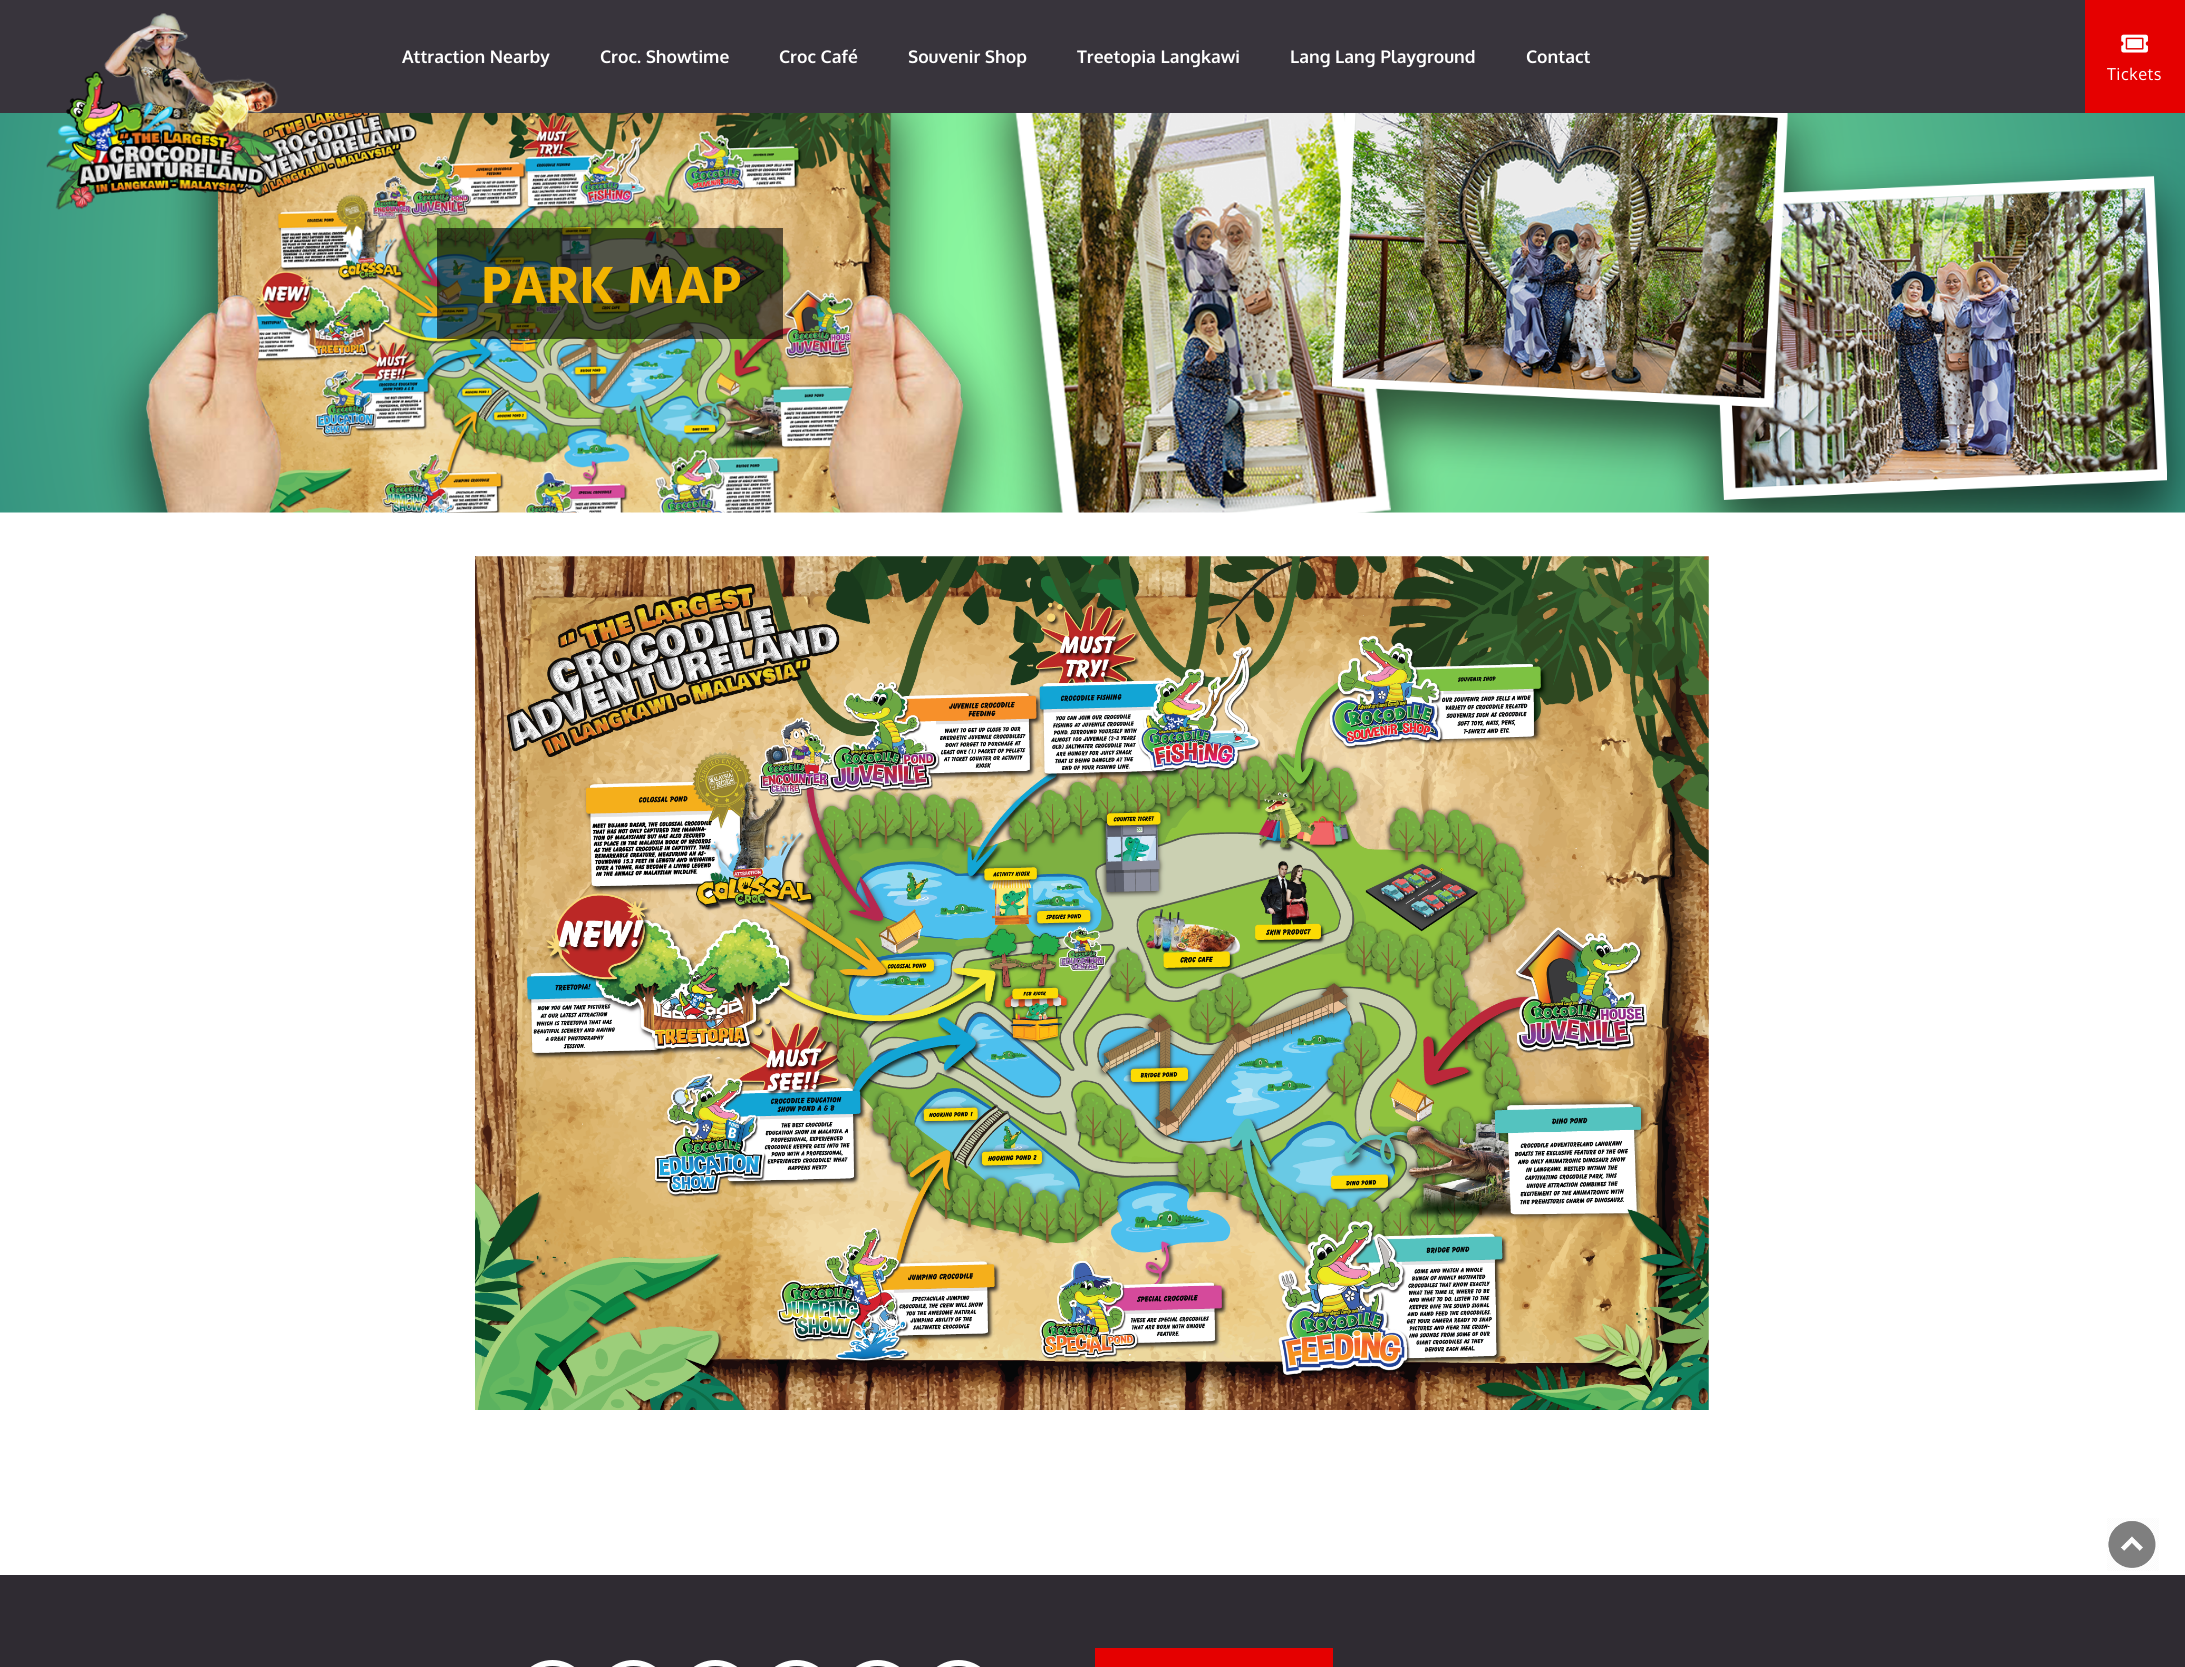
#include <cairo.h>
#include <math.h>
#include <stddef.h>


static void spaced_text(cairo_t *cr, double x, double y, const char *s, double letter, double word) {
    cairo_move_to(cr, x, y);
    while (*s) {
        char ch[5] = {0};
        int n = 0;
        do ch[n++] = *s++; while ((*s & 0xC0) == 0x80);
        cairo_show_text(cr, ch);
        cairo_rel_move_to(cr, letter + word * (*ch == ' '), 0);
    }
}

static void round_rect(cairo_t *cr, double x, double y, double w, double h, double r) {
    cairo_new_sub_path(cr);
    cairo_arc(cr, x + w - r, y + h - r, r, 0, M_PI / 2);
    cairo_arc(cr, x + r, y + h - r, r, M_PI / 2, M_PI);
    cairo_arc(cr, x + r, y + r, r, M_PI, 1.5 * M_PI);
    cairo_arc(cr, x + w - r, y + r, r, 1.5 * M_PI, 2 * M_PI);
    cairo_close_path(cr);
}

static void picture(cairo_t *cr, const char *path, double x, double y, double w, double h) {
    cairo_surface_t *image = cairo_image_surface_create_from_png(path);
    cairo_save(cr);
    cairo_set_source_surface(cr, image, x, y);
    cairo_rectangle(cr, x, y, w, h);
    cairo_fill(cr);
    cairo_restore(cr);
    cairo_surface_destroy(image);
}

int main(void) {
    cairo_surface_t *surface = cairo_image_surface_create(CAIRO_FORMAT_RGB24, 2185, 1667);
    cairo_t *cr = cairo_create(surface);
    cairo_font_options_t *options = cairo_font_options_create();
    cairo_font_options_set_hint_metrics(options, CAIRO_HINT_METRICS_OFF);
    cairo_font_options_set_hint_style(options, CAIRO_HINT_STYLE_NONE);
    cairo_set_font_options(cr, options);
    cairo_set_miter_limit(cr, 4);
    cairo_set_source_rgb(cr, 1, 1, 1);
    cairo_paint(cr);
    cairo_set_source_rgb(cr, 0.22, 0.204, 0.235);
    cairo_rectangle(cr, 0, 0, 2085, 113);
    cairo_fill(cr);
    picture(cr, "img3.png", 0, 113, 2185, 400);
    picture(cr, "img1.png", 46, 13, 234, 197);
    cairo_select_font_face(cr, "Oxygen", CAIRO_FONT_SLANT_NORMAL, CAIRO_FONT_WEIGHT_BOLD);
    cairo_set_font_size(cr, 17.5);
    cairo_set_source_rgb(cr, 1, 1, 1);
    cairo_move_to(cr, 402, 63);
    cairo_show_text(cr, "Attraction Nearby");
    cairo_move_to(cr, 600, 63);
    cairo_show_text(cr, "Croc. Showtime");
    cairo_move_to(cr, 779, 63);
    cairo_show_text(cr, "Croc Café");
    cairo_move_to(cr, 908, 63);
    cairo_show_text(cr, "Souvenir Shop");
    cairo_move_to(cr, 1077, 63);
    cairo_show_text(cr, "Treetopia Langkawi");
    cairo_move_to(cr, 1290, 63);
    cairo_show_text(cr, "Lang Lang Playground");
    cairo_move_to(cr, 1526, 63);
    cairo_show_text(cr, "Contact");
    cairo_set_source_rgb(cr, 0.898, 0, 0);
    cairo_rectangle(cr, 2085, 0, 100, 113);
    cairo_fill(cr);
    picture(cr, "img2.png", 2121, 34, 27, 19);
    cairo_select_font_face(cr, "Oxygen", CAIRO_FONT_SLANT_NORMAL, CAIRO_FONT_WEIGHT_NORMAL);
    cairo_set_font_size(cr, 16.5);
    cairo_set_source_rgb(cr, 1, 1, 1);
    spaced_text(cr, 2107, 80, "Tickets", 0.5, 0);
    cairo_set_source_rgba(cr, 0, 0, 0, 0.6);
    cairo_rectangle(cr, 437, 228, 346, 111);
    cairo_fill(cr);
    cairo_select_font_face(cr, "Hind Vadodara", CAIRO_FONT_SLANT_NORMAL, CAIRO_FONT_WEIGHT_BOLD);
    cairo_set_font_size(cr, 53.5);
    cairo_set_source_rgb(cr, 0.949, 0.706, 0);
    spaced_text(cr, 481, 303, "PARK MAP", -0.5, 0);
    picture(cr, "img4.png", 475, 556, 1234, 854);
    picture(cr, "img5.png", 2107, 1518, 52, 53);
    cairo_set_source_rgb(cr, 0.184, 0.169, 0.196);
    cairo_rectangle(cr, 0, 1575, 2185, 92);
    cairo_fill(cr);
    cairo_set_source_rgb(cr, 0.898, 0, 0);
    cairo_rectangle(cr, 1095, 1648, 238, 19);
    cairo_fill(cr);
    round_rect(cr, 518, 1663, 69, 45, 34.5);
    cairo_set_source_rgb(cr, 1, 1, 1);
    cairo_set_line_width(cr, 6);
    cairo_stroke(cr);
    round_rect(cr, 599, 1663, 69, 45, 34.5);
    cairo_stroke(cr);
    round_rect(cr, 681, 1663, 69, 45, 34.5);
    cairo_stroke(cr);
    round_rect(cr, 762, 1663, 69, 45, 34.5);
    cairo_stroke(cr);
    round_rect(cr, 843, 1663, 69, 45, 34.5);
    cairo_stroke(cr);
    round_rect(cr, 924, 1663, 69, 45, 34.5);
    cairo_stroke(cr);
    cairo_surface_write_to_png(surface, "page.png");
    cairo_font_options_destroy(options);
    cairo_destroy(cr);
    cairo_surface_destroy(surface);
    return 0;
}
